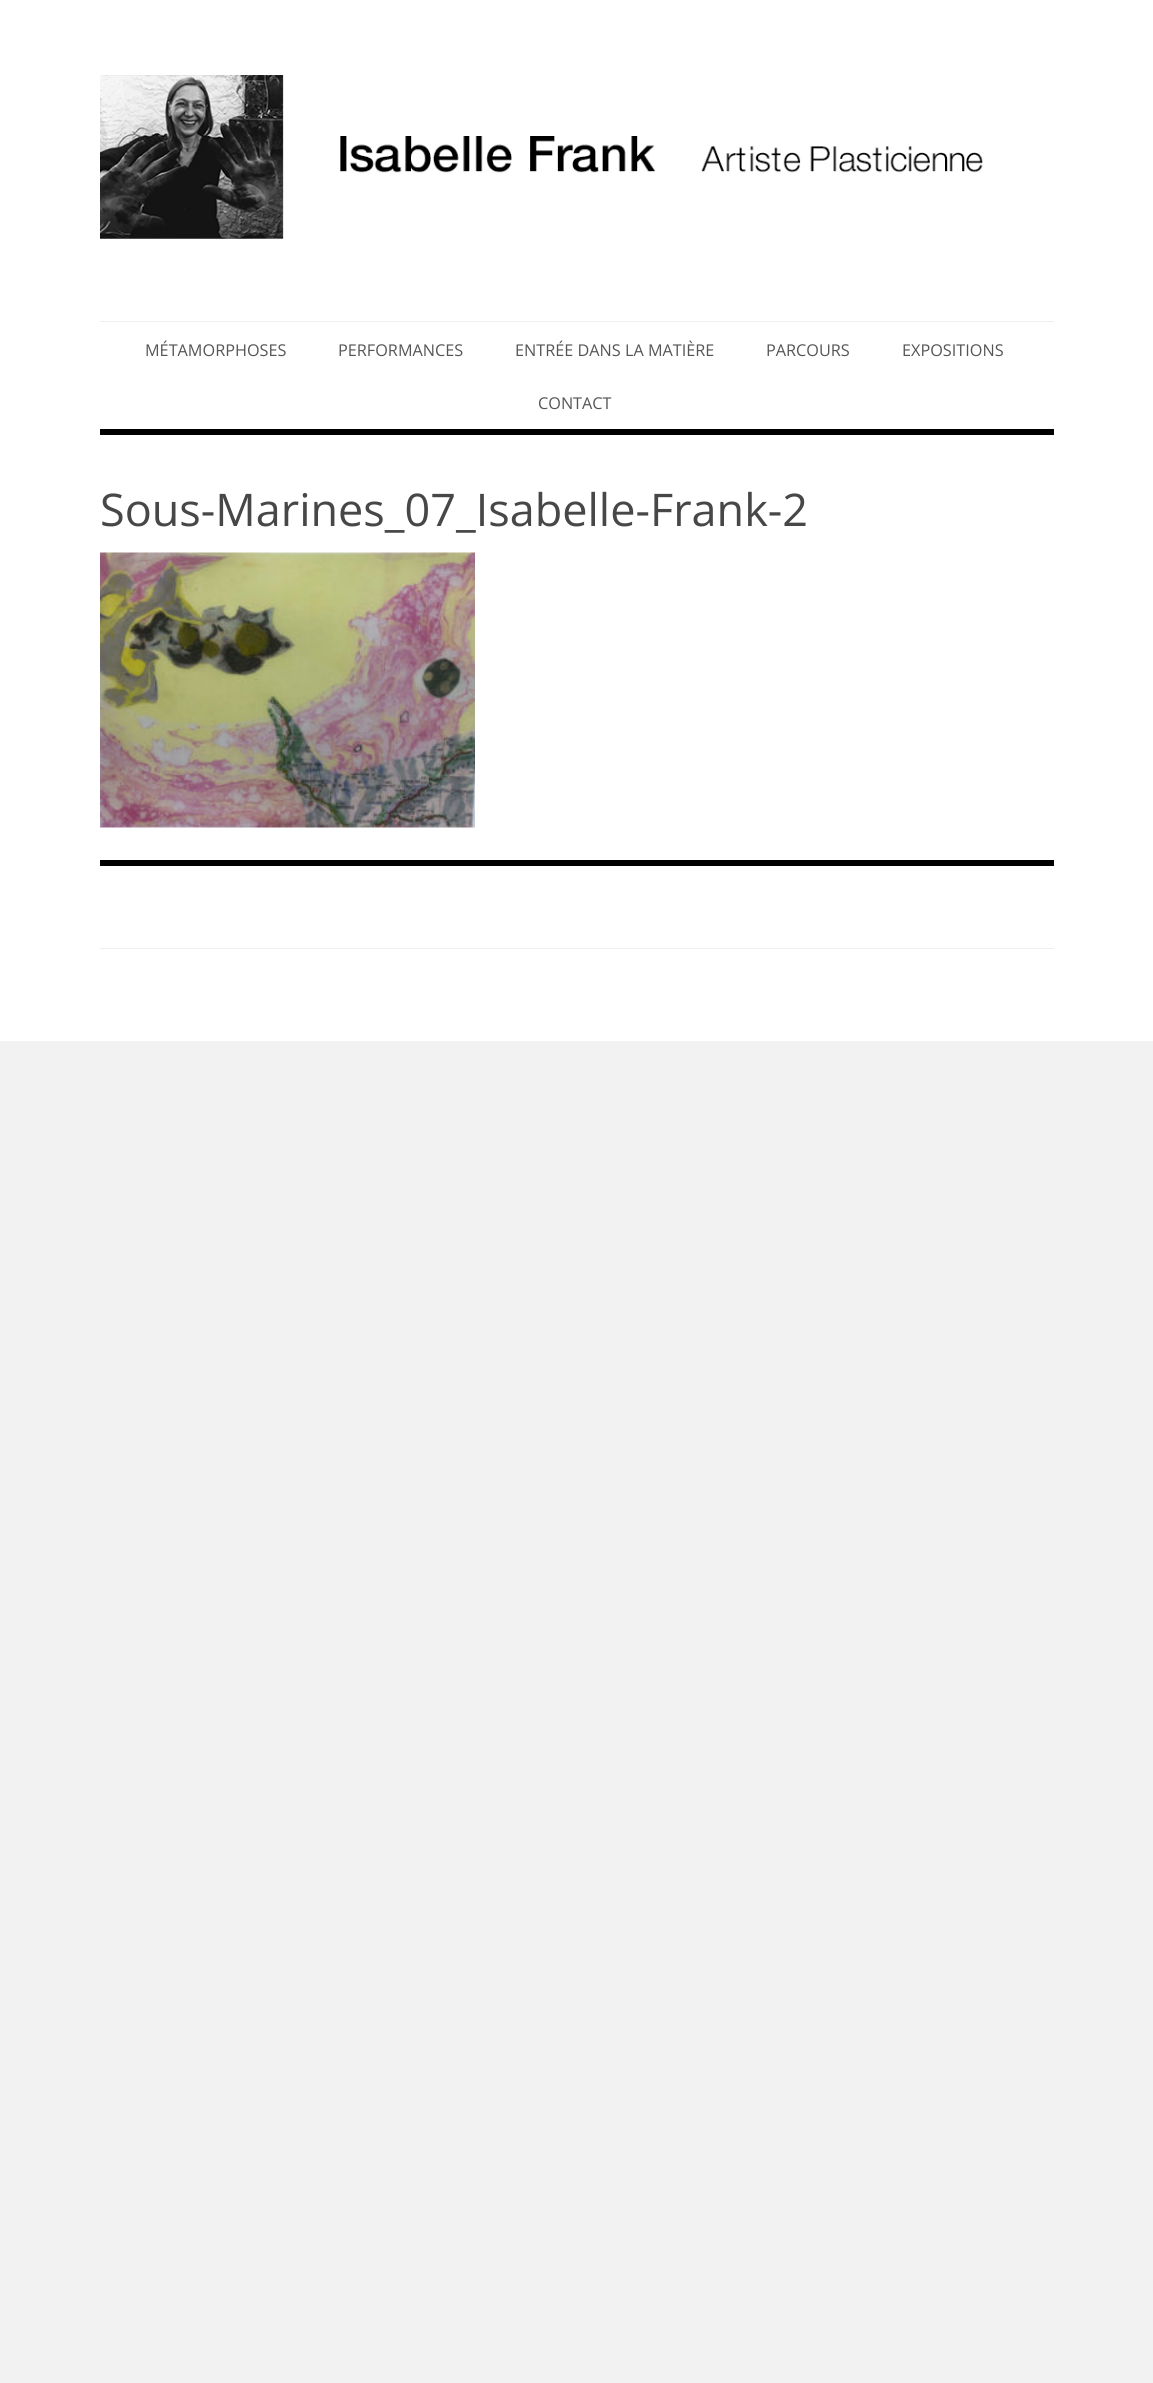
#include <cairo.h>
#include <math.h>
#include <stddef.h>


static void picture(cairo_t *cr, const char *path, double x, double y, double w, double h) {
    cairo_surface_t *image = cairo_image_surface_create_from_png(path);
    cairo_save(cr);
    cairo_set_source_surface(cr, image, x, y);
    cairo_rectangle(cr, x, y, w, h);
    cairo_fill(cr);
    cairo_restore(cr);
    cairo_surface_destroy(image);
}

int main(void) {
    cairo_surface_t *surface = cairo_image_surface_create(CAIRO_FORMAT_RGB24, 1153, 2383);
    cairo_t *cr = cairo_create(surface);
    cairo_font_options_t *options = cairo_font_options_create();
    cairo_font_options_set_hint_metrics(options, CAIRO_HINT_METRICS_OFF);
    cairo_font_options_set_hint_style(options, CAIRO_HINT_STYLE_NONE);
    cairo_set_font_options(cr, options);
    cairo_set_miter_limit(cr, 4);
    cairo_set_source_rgb(cr, 0.949, 0.949, 0.949);
    cairo_paint(cr);
    cairo_set_source_rgb(cr, 1, 1, 1);
    cairo_rectangle(cr, 0, 0, 1153, 1041);
    cairo_fill(cr);
    picture(cr, "img1.png", 100, 75, 883, 164);
    cairo_set_source_rgb(cr, 0.937, 0.937, 0.937);
    cairo_rectangle(cr, 100, 321, 954, 1);
    cairo_fill(cr);
    cairo_set_source_rgb(cr, 0, 0, 0);
    cairo_rectangle(cr, 100, 429, 954, 6);
    cairo_fill(cr);
    cairo_select_font_face(cr, "Open Sans", CAIRO_FONT_SLANT_NORMAL, CAIRO_FONT_WEIGHT_NORMAL);
    cairo_set_font_size(cr, 16.25);
    cairo_set_source_rgb(cr, 0.333, 0.333, 0.333);
    cairo_move_to(cr, 145, 356);
    cairo_show_text(cr, "MÉTAMORPHOSES");
    cairo_move_to(cr, 338, 356);
    cairo_show_text(cr, "PERFORMANCES");
    cairo_move_to(cr, 515, 356);
    cairo_show_text(cr, "ENTRÉE DANS LA MATIÈRE");
    cairo_move_to(cr, 766, 356);
    cairo_show_text(cr, "PARCOURS");
    cairo_move_to(cr, 902, 356);
    cairo_show_text(cr, "EXPOSITIONS");
    cairo_move_to(cr, 538, 409);
    cairo_show_text(cr, "CONTACT");
    cairo_set_font_size(cr, 45);
    cairo_set_source_rgb(cr, 0.278, 0.278, 0.278);
    cairo_move_to(cr, 100, 526);
    cairo_show_text(cr, "Sous-Marines_07_Isabelle-Frank-2");
    picture(cr, "img2.png", 100, 552, 375, 276);
    cairo_set_source_rgb(cr, 0, 0, 0);
    cairo_rectangle(cr, 100, 860, 954, 6);
    cairo_fill(cr);
    cairo_set_source_rgb(cr, 0.937, 0.937, 0.937);
    cairo_rectangle(cr, 100, 948, 954, 1);
    cairo_fill(cr);
    cairo_surface_write_to_png(surface, "page.png");
    cairo_font_options_destroy(options);
    cairo_destroy(cr);
    cairo_surface_destroy(surface);
    return 0;
}
